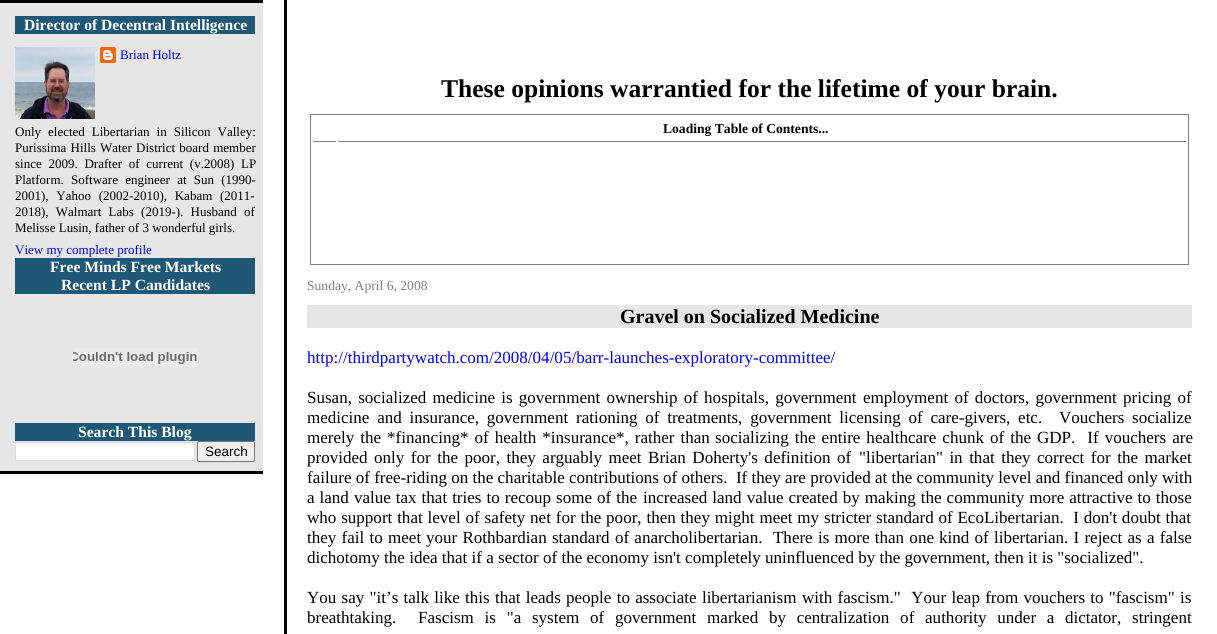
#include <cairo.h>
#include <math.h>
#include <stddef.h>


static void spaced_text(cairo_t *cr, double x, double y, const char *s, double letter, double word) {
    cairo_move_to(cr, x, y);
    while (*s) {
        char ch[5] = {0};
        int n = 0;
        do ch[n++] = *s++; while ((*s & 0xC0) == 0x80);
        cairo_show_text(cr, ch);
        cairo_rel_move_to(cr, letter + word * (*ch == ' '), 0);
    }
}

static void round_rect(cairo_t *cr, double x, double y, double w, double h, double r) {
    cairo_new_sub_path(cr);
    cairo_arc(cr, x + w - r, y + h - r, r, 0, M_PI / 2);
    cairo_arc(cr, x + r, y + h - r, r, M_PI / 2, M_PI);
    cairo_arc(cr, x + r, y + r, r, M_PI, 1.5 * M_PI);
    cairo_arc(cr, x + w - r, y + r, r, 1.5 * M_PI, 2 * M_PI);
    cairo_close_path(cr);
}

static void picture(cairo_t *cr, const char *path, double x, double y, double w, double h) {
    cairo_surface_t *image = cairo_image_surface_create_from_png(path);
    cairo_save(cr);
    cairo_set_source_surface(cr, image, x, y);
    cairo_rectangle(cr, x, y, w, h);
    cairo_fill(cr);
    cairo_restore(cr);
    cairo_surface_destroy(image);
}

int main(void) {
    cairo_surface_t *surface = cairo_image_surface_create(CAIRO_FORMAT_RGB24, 1217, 634);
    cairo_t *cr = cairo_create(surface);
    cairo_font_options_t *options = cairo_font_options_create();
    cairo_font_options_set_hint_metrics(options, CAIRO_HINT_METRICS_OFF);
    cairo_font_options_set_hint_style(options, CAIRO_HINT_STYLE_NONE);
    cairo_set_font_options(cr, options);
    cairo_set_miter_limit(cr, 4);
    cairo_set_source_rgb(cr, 1, 1, 1);
    cairo_paint(cr);
    cairo_set_source_rgb(cr, 0.902, 0.902, 0.902);
    cairo_rectangle(cr, 0, 3, 263, 468);
    cairo_fill(cr);
    cairo_set_source_rgb(cr, 0, 0, 0);
    cairo_rectangle(cr, 0, 0, 263, 3);
    cairo_fill(cr);
    cairo_rectangle(cr, 0, 471, 263, 3);
    cairo_fill(cr);
    cairo_set_source_rgb(cr, 0.122, 0.345, 0.463);
    cairo_rectangle(cr, 15, 16, 240, 18);
    cairo_fill(cr);
    cairo_select_font_face(cr, "Liberation Serif", CAIRO_FONT_SLANT_NORMAL, CAIRO_FONT_WEIGHT_BOLD);
    cairo_set_font_size(cr, 15.6);
    cairo_set_source_rgb(cr, 1, 1, 1);
    cairo_move_to(cr, 24, 30);
    cairo_show_text(cr, "Director of Decentral Intelligence");
    picture(cr, "img1.png", 15, 47, 80, 72);
    picture(cr, "img2.png", 100, 47, 16, 16);
    cairo_select_font_face(cr, "Liberation Serif", CAIRO_FONT_SLANT_NORMAL, CAIRO_FONT_WEIGHT_NORMAL);
    cairo_set_font_size(cr, 13);
    cairo_set_source_rgb(cr, 0, 0, 1);
    cairo_move_to(cr, 120, 59);
    cairo_show_text(cr, "Brian Holtz");
    cairo_set_source_rgb(cr, 0, 0, 0);
    spaced_text(cr, 15, 136, "Only elected Libertarian in Silicon Valley:", 0, 3.75);
    spaced_text(cr, 15, 152, "Purissima Hills Water District board member", 0, 1);
    spaced_text(cr, 15, 168, "since 2009. Drafter of current (v.2008) LP", 0, 3.5);
    spaced_text(cr, 15, 184, "Platform. Software engineer at Sun (1990-", 0, 4);
    spaced_text(cr, 15, 200, "2001), Yahoo (2002-2010), Kabam (2011-", 0, 4.5);
    spaced_text(cr, 15, 216, "2018), Walmart Labs (2019-). Husband of", 0, 4);
    cairo_move_to(cr, 15, 232);
    cairo_show_text(cr, "Melisse Lusin, father of 3 wonderful girls.");
    cairo_set_source_rgb(cr, 0, 0, 1);
    cairo_move_to(cr, 15, 254);
    cairo_show_text(cr, "View my complete profile");
    cairo_set_source_rgb(cr, 0.122, 0.345, 0.463);
    cairo_rectangle(cr, 15, 258, 240, 36);
    cairo_fill(cr);
    cairo_select_font_face(cr, "Liberation Serif", CAIRO_FONT_SLANT_NORMAL, CAIRO_FONT_WEIGHT_BOLD);
    cairo_set_font_size(cr, 15.6);
    cairo_set_source_rgb(cr, 1, 1, 1);
    cairo_move_to(cr, 50, 272);
    cairo_show_text(cr, "Free Minds Free Markets");
    cairo_move_to(cr, 61, 290);
    cairo_show_text(cr, "Recent LP Candidates");
    picture(cr, "img3.png", 73, 348, 125, 18);
    cairo_set_source_rgb(cr, 0.122, 0.345, 0.463);
    cairo_rectangle(cr, 15, 423, 240, 18);
    cairo_fill(cr);
    cairo_set_source_rgb(cr, 1, 1, 1);
    cairo_move_to(cr, 78, 437);
    cairo_show_text(cr, "Search This Blog");
    cairo_rectangle(cr, 15.5, 442.5, 179, 18);
    cairo_fill_preserve(cr);
    cairo_set_source_rgb(cr, 0.867, 0.867, 0.867);
    cairo_set_line_width(cr, 1);
    cairo_stroke(cr);
    cairo_set_source_rgb(cr, 0.937, 0.937, 0.937);
    round_rect(cr, 197.5, 441.5, 57, 20, 1.5);
    cairo_fill_preserve(cr);
    cairo_set_source_rgb(cr, 0.463, 0.463, 0.463);
    cairo_stroke(cr);
    cairo_select_font_face(cr, "Liberation Sans", CAIRO_FONT_SLANT_NORMAL, CAIRO_FONT_WEIGHT_NORMAL);
    cairo_set_font_size(cr, 13.5);
    cairo_set_source_rgb(cr, 0, 0, 0);
    cairo_move_to(cr, 205, 456);
    cairo_show_text(cr, "Search");
    cairo_rectangle(cr, 284, 0, 3, 634);
    cairo_fill(cr);
    cairo_select_font_face(cr, "Liberation Serif", CAIRO_FONT_SLANT_NORMAL, CAIRO_FONT_WEIGHT_BOLD);
    cairo_set_font_size(cr, 25.55);
    cairo_move_to(cr, 441, 97);
    cairo_show_text(cr, "These opinions warrantied for the lifetime of your brain.");
    cairo_rectangle(cr, 310.5, 114.5, 878, 150);
    cairo_set_source_rgb(cr, 0.502, 0.502, 0.502);
    cairo_stroke(cr);
    cairo_rectangle(cr, 338, 141, 848, 1);
    cairo_fill(cr);
    cairo_set_font_size(cr, 13.6);
    cairo_set_source_rgb(cr, 0, 0, 0);
    cairo_move_to(cr, 663, 133);
    cairo_show_text(cr, "Loading Table of Contents...");
    cairo_set_source_rgb(cr, 0.502, 0.502, 0.502);
    cairo_rectangle(cr, 313, 141, 23, 1);
    cairo_fill(cr);
    cairo_select_font_face(cr, "Liberation Serif", CAIRO_FONT_SLANT_NORMAL, CAIRO_FONT_WEIGHT_NORMAL);
    cairo_move_to(cr, 307, 290);
    cairo_show_text(cr, "Sunday, April 6, 2008");
    cairo_set_source_rgb(cr, 0.902, 0.902, 0.902);
    cairo_rectangle(cr, 307, 305, 885, 23);
    cairo_fill(cr);
    cairo_select_font_face(cr, "Liberation Serif", CAIRO_FONT_SLANT_NORMAL, CAIRO_FONT_WEIGHT_BOLD);
    cairo_set_font_size(cr, 20);
    cairo_set_source_rgb(cr, 0, 0, 0);
    cairo_move_to(cr, 620, 323);
    cairo_show_text(cr, "Gravel on Socialized Medicine");
    cairo_select_font_face(cr, "Liberation Serif", CAIRO_FONT_SLANT_NORMAL, CAIRO_FONT_WEIGHT_NORMAL);
    cairo_set_font_size(cr, 17.03);
    cairo_set_source_rgb(cr, 0, 0, 1);
    cairo_move_to(cr, 307, 363);
    cairo_show_text(cr, "http://thirdpartywatch.com/2008/04/05/barr-launches-exploratory-committee/");
    cairo_set_source_rgb(cr, 0, 0, 0);
    spaced_text(cr, 307, 403, "Susan, socialized medicine is government ownership of hospitals, government", 0, 2);
    spaced_text(cr, 863, 403, "employment of doctors, government pricing of", 0, 2);
    spaced_text(cr, 307, 423, "medicine and insurance, government", 0, 3.5);
    spaced_text(cr, 576, 423, "rationing of treatments, government licensing of care-givers, etc.", 0, 3.5);
    spaced_text(cr, 1059, 423, "Vouchers socialize", 0, 3.5);
    spaced_text(cr, 307, 443, "merely the *financing* of health *insurance*, rather than", 0, 1.75);
    spaced_text(cr, 715, 443, "socializing the entire healthcare chunk of the GDP.  If vouchers are", 0, 1.75);
    spaced_text(cr, 307, 463, "provided only for the poor, they arguably meet Brian Doherty's definition of", 0, 2.25);
    spaced_text(cr, 859, 463, "\"libertarian\" in that they correct for the market", 0, 2.25);
    cairo_move_to(cr, 307, 483);
    cairo_show_text(cr, "failure of free-riding on the charitable contributions of others.  If they are provided at the community level and financed only with");
    spaced_text(cr, 307, 503, "a land value tax that tries to recoup some of the", 0, 0.75);
    spaced_text(cr, 643, 503, "increased land value created by making the community more attractive to those", 0, 0.75);
    spaced_text(cr, 307, 523, "who support that level of safety net for the poor, then they might meet my", 0, 0.6);
    spaced_text(cr, 824, 523, "stricter standard of EcoLibertarian.  I don't doubt that", 0, 0.5);
    spaced_text(cr, 307, 543, "they fail to meet", 0, 1);
    spaced_text(cr, 426, 543, "your Rothbardian standard of anarcholibertarian.  There is more than one", 0, 1);
    spaced_text(cr, 939, 543, "kind of libertarian. I reject as a false", 0, 1);
    cairo_move_to(cr, 307, 563);
    cairo_show_text(cr, "dichotomy the idea that if a sector of the economy isn't completely uninfluenced by the government, then it is \"socialized\".");
    spaced_text(cr, 307, 603, "You say \"it’s talk like this that leads people to associate libertarianism", 0, 1);
    spaced_text(cr, 802, 603, "with fascism.\"  Your leap from vouchers to \"fascism\" is", 0, 1);
    cairo_move_to(cr, 307, 623);
    cairo_show_text(cr, "breathtaking.");
    spaced_text(cr, 418, 623, "Fascism is \"a system of government marked by centralization of authority under a", 0, 6.5);
    spaced_text(cr, 1065, 623, "dictator, stringent", 0, 6.5);
    cairo_surface_write_to_png(surface, "page.png");
    cairo_font_options_destroy(options);
    cairo_destroy(cr);
    cairo_surface_destroy(surface);
    return 0;
}
